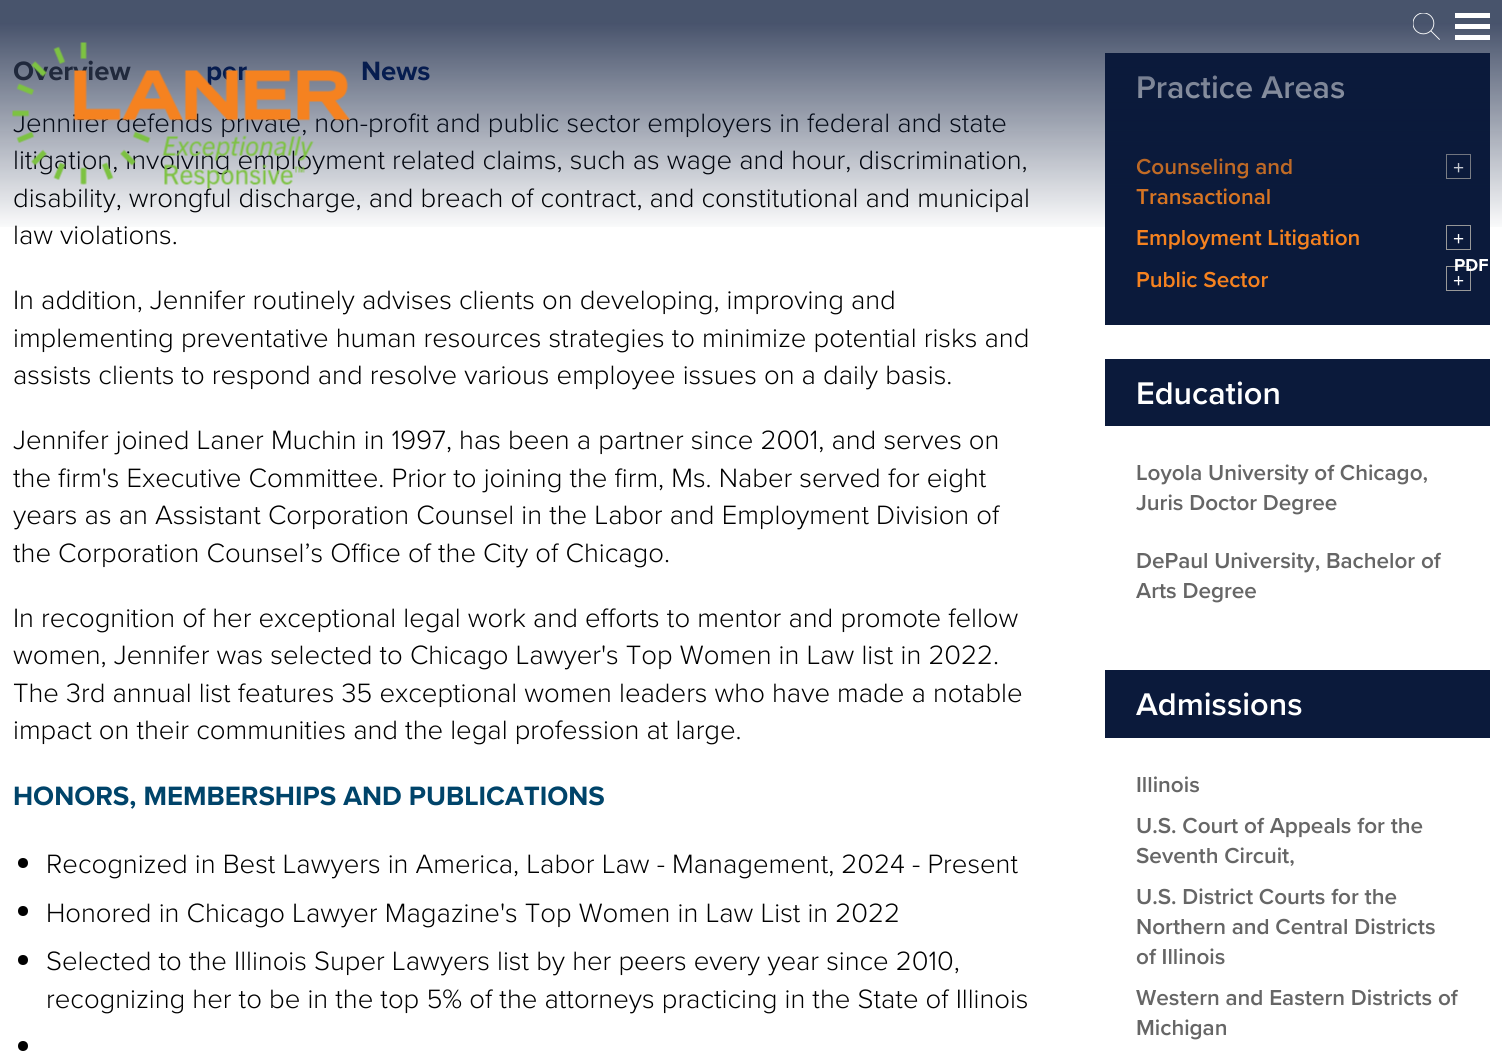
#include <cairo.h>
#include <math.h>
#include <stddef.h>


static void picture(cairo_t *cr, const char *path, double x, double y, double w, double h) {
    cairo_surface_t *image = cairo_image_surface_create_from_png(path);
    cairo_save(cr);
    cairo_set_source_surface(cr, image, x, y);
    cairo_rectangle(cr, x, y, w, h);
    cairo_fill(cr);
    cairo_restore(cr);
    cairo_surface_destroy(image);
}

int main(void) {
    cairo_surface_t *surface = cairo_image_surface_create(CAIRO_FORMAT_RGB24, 1502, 1052);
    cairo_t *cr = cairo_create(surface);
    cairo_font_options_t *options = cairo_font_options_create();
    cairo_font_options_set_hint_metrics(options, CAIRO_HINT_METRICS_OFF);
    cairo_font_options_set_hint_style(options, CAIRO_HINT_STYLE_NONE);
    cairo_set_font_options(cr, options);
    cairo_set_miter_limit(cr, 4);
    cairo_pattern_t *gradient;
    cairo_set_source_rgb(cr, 1, 1, 1);
    cairo_paint(cr);
    cairo_select_font_face(cr, "Proxima Nova", CAIRO_FONT_SLANT_NORMAL, CAIRO_FONT_WEIGHT_BOLD);
    cairo_set_font_size(cr, 27.5);
    cairo_set_source_rgb(cr, 0.239, 0.239, 0.239);
    cairo_move_to(cr, 13, 80);
    cairo_show_text(cr, "Overview");
    cairo_set_source_rgb(cr, 0, 0.125, 0.42);
    cairo_move_to(cr, 206, 80);
    cairo_show_text(cr, "per");
    cairo_move_to(cr, 361, 80);
    cairo_show_text(cr, "News");
    cairo_select_font_face(cr, "Proxima Nova Light", CAIRO_FONT_SLANT_NORMAL, CAIRO_FONT_WEIGHT_NORMAL);
    cairo_set_source_rgb(cr, 0, 0, 0);
    cairo_move_to(cr, 13, 132);
    cairo_show_text(cr, "Jennifer defends private, non-profit and public sector employers in federal and state");
    cairo_move_to(cr, 13, 169);
    cairo_show_text(cr, "litigation, involving employment related claims, such as wage and hour, discrimination,");
    cairo_move_to(cr, 13, 207);
    cairo_show_text(cr, "disability, wrongful discharge, and breach of contract, and constitutional and municipal");
    cairo_move_to(cr, 13, 244);
    cairo_show_text(cr, "law violations.");
    cairo_set_source_rgb(cr, 0.043, 0.102, 0.231);
    cairo_rectangle(cr, 1105, 53, 385, 272);
    cairo_fill(cr);
    cairo_select_font_face(cr, "Proxima Nova SemiBold", CAIRO_FONT_SLANT_NORMAL, CAIRO_FONT_WEIGHT_NORMAL);
    cairo_set_font_size(cr, 32.5);
    cairo_set_source_rgb(cr, 1, 1, 1);
    cairo_move_to(cr, 1136, 98);
    cairo_show_text(cr, "Practice Areas");
    cairo_set_font_size(cr, 22.5);
    cairo_set_source_rgb(cr, 0.961, 0.51, 0.122);
    cairo_move_to(cr, 1136, 174);
    cairo_show_text(cr, "Counseling and");
    cairo_rectangle(cr, 1446.5, 154.5, 24, 24);
    cairo_set_source_rgb(cr, 0.6, 0.6, 0.6);
    cairo_set_line_width(cr, 1);
    cairo_stroke(cr);
    cairo_select_font_face(cr, "Liberation Sans", CAIRO_FONT_SLANT_NORMAL, CAIRO_FONT_WEIGHT_NORMAL);
    cairo_set_font_size(cr, 19);
    cairo_set_source_rgb(cr, 1, 1, 1);
    cairo_move_to(cr, 1453, 174);
    cairo_show_text(cr, "+");
    cairo_select_font_face(cr, "Proxima Nova SemiBold", CAIRO_FONT_SLANT_NORMAL, CAIRO_FONT_WEIGHT_NORMAL);
    cairo_set_font_size(cr, 22.5);
    cairo_set_source_rgb(cr, 0.961, 0.51, 0.122);
    cairo_move_to(cr, 1136, 204);
    cairo_show_text(cr, "Transactional");
    cairo_rectangle(cr, 1446.5, 225.5, 24, 24);
    cairo_set_source_rgb(cr, 0.6, 0.6, 0.6);
    cairo_stroke(cr);
    gradient = cairo_pattern_create_linear(751, 0, 751, 233);
    cairo_pattern_add_color_stop_rgba(gradient, 0.1, 0.043, 0.102, 0.231, 0.75);
    cairo_pattern_add_color_stop_rgba(gradient, 1, 0.043, 0.102, 0.231, 0);
    cairo_set_source(cr, gradient);
    cairo_pattern_destroy(gradient);
    cairo_rectangle(cr, 0, 0, 1502, 227);
    cairo_fill(cr);
    cairo_set_source_rgb(cr, 1, 1, 1);
    cairo_rectangle(cr, 1455, 13, 35, 5);
    cairo_fill(cr);
    cairo_rectangle(cr, 1455, 35, 35, 5);
    cairo_fill(cr);
    cairo_rectangle(cr, 1455, 24, 35, 5);
    cairo_fill(cr);
    cairo_select_font_face(cr, "Proxima Nova Light", CAIRO_FONT_SLANT_NORMAL, CAIRO_FONT_WEIGHT_NORMAL);
    cairo_set_font_size(cr, 27.5);
    cairo_set_source_rgb(cr, 0, 0, 0);
    cairo_move_to(cr, 13, 309);
    cairo_show_text(cr, "In addition, Jennifer routinely advises clients on developing, improving and");
    cairo_move_to(cr, 13, 347);
    cairo_show_text(cr, "implementing preventative human resources strategies to minimize potential risks and");
    cairo_move_to(cr, 13, 384);
    cairo_show_text(cr, "assists clients to respond and resolve various employee issues on a daily basis.");
    cairo_move_to(cr, 13, 449);
    cairo_show_text(cr, "Jennifer joined Laner Muchin in 1997, has been a partner since 2001, and serves on");
    cairo_move_to(cr, 13, 487);
    cairo_show_text(cr, "the firm's Executive Committee. Prior to joining the firm, Ms. Naber served for eight");
    cairo_move_to(cr, 13, 524);
    cairo_show_text(cr, "years as an Assistant Corporation Counsel in the Labor and Employment Division of");
    cairo_move_to(cr, 13, 562);
    cairo_show_text(cr, "the Corporation Counsel’s Office of the City of Chicago.");
    cairo_move_to(cr, 13, 627);
    cairo_show_text(cr, "In recognition of her exceptional legal work and efforts to mentor and promote fellow");
    cairo_move_to(cr, 13, 664);
    cairo_show_text(cr, "women, Jennifer was selected to Chicago Lawyer's Top Women in Law list in 2022.");
    cairo_move_to(cr, 13, 702);
    cairo_show_text(cr, "The 3rd annual list features 35 exceptional women leaders who have made a notable");
    cairo_move_to(cr, 13, 739);
    cairo_show_text(cr, "impact on their communities and the legal profession at large.");
    cairo_select_font_face(cr, "Proxima Nova", CAIRO_FONT_SLANT_NORMAL, CAIRO_FONT_WEIGHT_BOLD);
    cairo_set_source_rgb(cr, 0, 0.267, 0.416);
    cairo_move_to(cr, 13, 805);
    cairo_show_text(cr, "HONORS, MEMBERSHIPS AND PUBLICATIONS");
    cairo_set_source_rgb(cr, 0, 0, 0);
    cairo_new_path(cr);
    cairo_arc(cr, 23, 863, 5, 0, 2 * M_PI);
    cairo_fill(cr);
    cairo_select_font_face(cr, "Proxima Nova Light", CAIRO_FONT_SLANT_NORMAL, CAIRO_FONT_WEIGHT_NORMAL);
    cairo_move_to(cr, 46, 873);
    cairo_show_text(cr, "Recognized in Best Lawyers in America, Labor Law - Management, 2024 - Present");
    cairo_new_path(cr);
    cairo_arc(cr, 23, 911, 5, 0, 2 * M_PI);
    cairo_fill(cr);
    cairo_move_to(cr, 46, 922);
    cairo_show_text(cr, "Honored in Chicago Lawyer Magazine's Top Women in Law List in 2022");
    cairo_new_path(cr);
    cairo_arc(cr, 23, 960, 5, 0, 2 * M_PI);
    cairo_fill(cr);
    cairo_move_to(cr, 46, 970);
    cairo_show_text(cr, "Selected to the Illinois Super Lawyers list by her peers every year since 2010,");
    cairo_move_to(cr, 46, 1008);
    cairo_show_text(cr, "recognizing her to be in the top 5% of the attorneys practicing in the State of Illinois");
    cairo_new_path(cr);
    cairo_arc(cr, 23, 1046, 5, 0, 2 * M_PI);
    cairo_fill(cr);
    cairo_select_font_face(cr, "Proxima Nova SemiBold", CAIRO_FONT_SLANT_NORMAL, CAIRO_FONT_WEIGHT_NORMAL);
    cairo_set_font_size(cr, 22.5);
    cairo_set_source_rgb(cr, 0.961, 0.51, 0.122);
    cairo_move_to(cr, 1136, 245);
    cairo_show_text(cr, "Employment Litigation");
    cairo_select_font_face(cr, "Liberation Sans", CAIRO_FONT_SLANT_NORMAL, CAIRO_FONT_WEIGHT_NORMAL);
    cairo_set_font_size(cr, 19);
    cairo_set_source_rgb(cr, 1, 1, 1);
    cairo_move_to(cr, 1453, 245);
    cairo_show_text(cr, "+");
    cairo_select_font_face(cr, "Proxima Nova SemiBold", CAIRO_FONT_SLANT_NORMAL, CAIRO_FONT_WEIGHT_NORMAL);
    cairo_set_font_size(cr, 22.5);
    cairo_set_source_rgb(cr, 0.961, 0.51, 0.122);
    cairo_move_to(cr, 1136, 287);
    cairo_show_text(cr, "Public Sector");
    cairo_rectangle(cr, 1446.5, 266.5, 24, 24);
    cairo_set_source_rgb(cr, 0.6, 0.6, 0.6);
    cairo_stroke(cr);
    cairo_select_font_face(cr, "Liberation Sans", CAIRO_FONT_SLANT_NORMAL, CAIRO_FONT_WEIGHT_NORMAL);
    cairo_set_font_size(cr, 19);
    cairo_set_source_rgb(cr, 1, 1, 1);
    cairo_move_to(cr, 1453, 287);
    cairo_show_text(cr, "+");
    cairo_set_source_rgb(cr, 0.043, 0.102, 0.231);
    cairo_rectangle(cr, 1105, 359, 385, 67);
    cairo_fill(cr);
    cairo_select_font_face(cr, "Proxima Nova SemiBold", CAIRO_FONT_SLANT_NORMAL, CAIRO_FONT_WEIGHT_NORMAL);
    cairo_set_font_size(cr, 32.5);
    cairo_set_source_rgb(cr, 1, 1, 1);
    cairo_move_to(cr, 1136, 404);
    cairo_show_text(cr, "Education");
    cairo_set_font_size(cr, 22.5);
    cairo_set_source_rgb(cr, 0.4, 0.4, 0.4);
    cairo_move_to(cr, 1136, 480);
    cairo_show_text(cr, "Loyola University of Chicago,");
    cairo_move_to(cr, 1136, 510);
    cairo_show_text(cr, "Juris Doctor Degree");
    cairo_move_to(cr, 1136, 568);
    cairo_show_text(cr, "DePaul University, Bachelor of");
    cairo_move_to(cr, 1136, 598);
    cairo_show_text(cr, "Arts Degree");
    cairo_set_source_rgb(cr, 0.043, 0.102, 0.231);
    cairo_rectangle(cr, 1105, 670, 385, 68);
    cairo_fill(cr);
    cairo_set_font_size(cr, 32.5);
    cairo_set_source_rgb(cr, 1, 1, 1);
    cairo_move_to(cr, 1136, 715);
    cairo_show_text(cr, "Admissions");
    cairo_set_font_size(cr, 22.5);
    cairo_set_source_rgb(cr, 0.4, 0.4, 0.4);
    cairo_move_to(cr, 1136, 792);
    cairo_show_text(cr, "Illinois");
    cairo_move_to(cr, 1136, 833);
    cairo_show_text(cr, "U.S. Court of Appeals for the");
    cairo_move_to(cr, 1136, 863);
    cairo_show_text(cr, "Seventh Circuit,");
    cairo_move_to(cr, 1136, 904);
    cairo_show_text(cr, "U.S. District Courts for the");
    cairo_move_to(cr, 1136, 934);
    cairo_show_text(cr, "Northern and Central Districts");
    cairo_move_to(cr, 1136, 964);
    cairo_show_text(cr, "of Illinois");
    cairo_move_to(cr, 1136, 1005);
    cairo_show_text(cr, "Western and Eastern Districts of");
    cairo_move_to(cr, 1136, 1035);
    cairo_show_text(cr, "Michigan");
    picture(cr, "img1.png", 1413, 13, 27, 27);
    picture(cr, "img2.png", 12, 42, 338, 147);
    cairo_select_font_face(cr, "Proxima Nova", CAIRO_FONT_SLANT_NORMAL, CAIRO_FONT_WEIGHT_BOLD);
    cairo_set_font_size(cr, 18);
    cairo_set_source_rgb(cr, 1, 1, 1);
    cairo_move_to(cr, 1454, 271);
    cairo_show_text(cr, "PDF");
    cairo_surface_write_to_png(surface, "page.png");
    cairo_font_options_destroy(options);
    cairo_destroy(cr);
    cairo_surface_destroy(surface);
    return 0;
}
